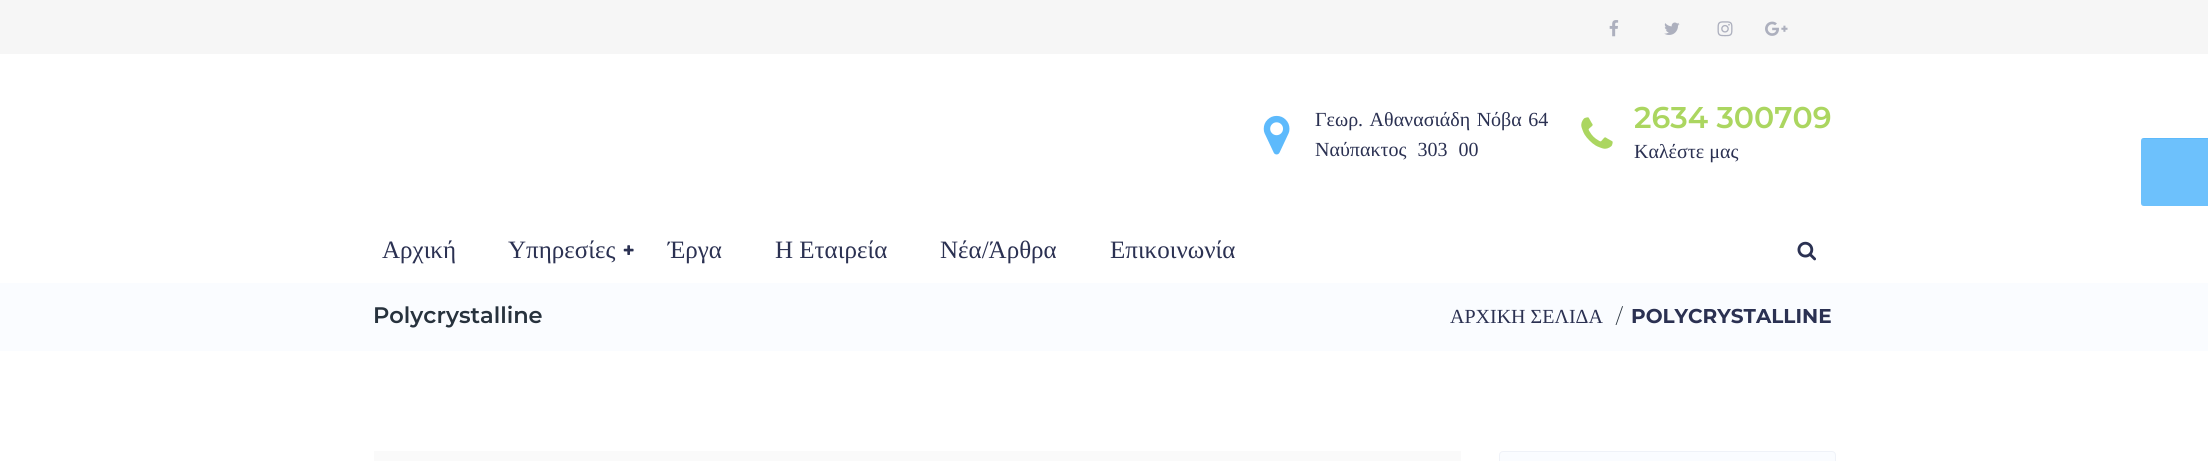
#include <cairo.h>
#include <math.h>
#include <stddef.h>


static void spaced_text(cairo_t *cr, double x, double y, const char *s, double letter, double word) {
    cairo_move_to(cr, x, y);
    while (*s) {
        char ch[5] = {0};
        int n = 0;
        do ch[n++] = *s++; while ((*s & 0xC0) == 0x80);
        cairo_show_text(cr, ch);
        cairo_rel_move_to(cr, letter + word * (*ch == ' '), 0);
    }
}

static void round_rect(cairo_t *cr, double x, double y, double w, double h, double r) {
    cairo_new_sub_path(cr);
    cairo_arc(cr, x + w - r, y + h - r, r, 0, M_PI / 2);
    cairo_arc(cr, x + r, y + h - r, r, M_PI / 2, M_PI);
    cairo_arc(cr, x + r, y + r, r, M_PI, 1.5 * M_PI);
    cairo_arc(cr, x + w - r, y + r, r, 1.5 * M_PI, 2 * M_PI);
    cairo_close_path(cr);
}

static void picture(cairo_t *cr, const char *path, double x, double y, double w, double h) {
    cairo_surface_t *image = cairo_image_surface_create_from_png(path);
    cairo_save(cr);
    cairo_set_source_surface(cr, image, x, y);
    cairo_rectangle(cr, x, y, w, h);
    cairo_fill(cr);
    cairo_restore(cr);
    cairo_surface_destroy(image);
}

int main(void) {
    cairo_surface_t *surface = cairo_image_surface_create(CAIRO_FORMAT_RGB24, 2208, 461);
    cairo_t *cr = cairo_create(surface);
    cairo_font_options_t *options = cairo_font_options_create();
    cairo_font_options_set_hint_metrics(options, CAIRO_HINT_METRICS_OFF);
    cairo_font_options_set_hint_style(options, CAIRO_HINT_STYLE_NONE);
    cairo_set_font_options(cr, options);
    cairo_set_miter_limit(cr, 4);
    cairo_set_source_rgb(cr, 1, 1, 1);
    cairo_paint(cr);
    cairo_set_source_rgb(cr, 0.961, 0.961, 0.961);
    cairo_rectangle(cr, 0, 0, 2208, 54);
    cairo_fill(cr);
    picture(cr, "img1.png", 1609, 20, 10, 17);
    picture(cr, "img2.png", 1664, 22, 16, 13);
    picture(cr, "img3.png", 1717, 21, 16, 16);
    picture(cr, "img4.png", 1765, 21, 23, 15);
    picture(cr, "img5.png", 1263, 115, 27, 40);
    cairo_select_font_face(cr, "Liberation Serif", CAIRO_FONT_SLANT_NORMAL, CAIRO_FONT_WEIGHT_NORMAL);
    cairo_set_font_size(cr, 20);
    cairo_set_source_rgb(cr, 0.169, 0.192, 0.322);
    spaced_text(cr, 1315, 126, "Γεωρ. Αθανασιάδη Νόβα 64", 0, 1.5);
    spaced_text(cr, 1315, 156, "Ναύπακτος 303 00", 0, 6);
    picture(cr, "img6.png", 1581, 117, 32, 32);
    cairo_select_font_face(cr, "Montserrat SemiBold", CAIRO_FONT_SLANT_NORMAL, CAIRO_FONT_WEIGHT_NORMAL);
    cairo_set_font_size(cr, 30);
    cairo_set_source_rgb(cr, 0.671, 0.839, 0.376);
    cairo_move_to(cr, 1634, 128);
    cairo_show_text(cr, "2634 300709");
    cairo_select_font_face(cr, "Liberation Serif", CAIRO_FONT_SLANT_NORMAL, CAIRO_FONT_WEIGHT_NORMAL);
    cairo_set_font_size(cr, 20);
    cairo_set_source_rgb(cr, 0.169, 0.192, 0.322);
    cairo_move_to(cr, 1634, 158);
    cairo_show_text(cr, "Καλέστε μας");
    cairo_set_font_size(cr, 25);
    cairo_move_to(cr, 382, 258);
    cairo_show_text(cr, "Αρχική");
    cairo_move_to(cr, 508, 258);
    cairo_show_text(cr, "Υπηρεσίες");
    picture(cr, "img7.png", 623, 245, 11, 10);
    cairo_move_to(cr, 668, 258);
    cairo_show_text(cr, "Έργα");
    cairo_move_to(cr, 775, 258);
    cairo_show_text(cr, "Η Εταιρεία");
    cairo_move_to(cr, 940, 258);
    cairo_show_text(cr, "Νέα/Άρθρα");
    cairo_move_to(cr, 1110, 258);
    cairo_show_text(cr, "Επικοινωνία");
    picture(cr, "img8.png", 1797, 241, 19, 20);
    cairo_set_source_rgb(cr, 0.365, 0.729, 0.988);
    cairo_new_path(cr);
    cairo_move_to(cr, 2141, 203);
    cairo_line_to(cr, 2141, 141);
    cairo_curve_to(cr, 2141, 139, 2142, 138, 2144, 138);
    cairo_line_to(cr, 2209, 138);
    cairo_line_to(cr, 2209, 206);
    cairo_line_to(cr, 2144, 206);
    cairo_curve_to(cr, 2142, 206, 2141, 205, 2141, 203);
    cairo_close_path(cr);
    cairo_fill(cr);
    cairo_set_source_rgba(cr, 1, 1, 1, 0.1);
    cairo_rectangle(cr, 2141, 139, 67, 67);
    cairo_fill(cr);
    cairo_set_source_rgb(cr, 0.98, 0.988, 1);
    cairo_rectangle(cr, 0, 283, 2208, 68);
    cairo_fill(cr);
    cairo_select_font_face(cr, "Montserrat SemiBold", CAIRO_FONT_SLANT_NORMAL, CAIRO_FONT_WEIGHT_NORMAL);
    cairo_set_font_size(cr, 22.5);
    cairo_set_source_rgb(cr, 0.153, 0.196, 0.239);
    cairo_move_to(cr, 373, 323);
    cairo_show_text(cr, "Polycrystalline");
    cairo_select_font_face(cr, "Liberation Serif", CAIRO_FONT_SLANT_NORMAL, CAIRO_FONT_WEIGHT_NORMAL);
    cairo_set_font_size(cr, 20);
    cairo_set_source_rgb(cr, 0.169, 0.192, 0.322);
    cairo_move_to(cr, 1450, 323);
    cairo_show_text(cr, "ΑΡΧΙΚΗ ΣΕΛΙΔΑ");
    cairo_select_font_face(cr, "Montserrat Light", CAIRO_FONT_SLANT_NORMAL, CAIRO_FONT_WEIGHT_NORMAL);
    cairo_set_source_rgb(cr, 0.153, 0.196, 0.239);
    cairo_move_to(cr, 1616, 323);
    cairo_show_text(cr, "/");
    cairo_select_font_face(cr, "Montserrat", CAIRO_FONT_SLANT_NORMAL, CAIRO_FONT_WEIGHT_BOLD);
    cairo_set_source_rgb(cr, 0.169, 0.192, 0.322);
    cairo_move_to(cr, 1631, 323);
    cairo_show_text(cr, "POLYCRYSTALLINE");
    cairo_set_source_rgb(cr, 0.98, 0.98, 0.98);
    cairo_rectangle(cr, 374, 451, 1087, 10);
    cairo_fill(cr);
    cairo_set_source_rgb(cr, 0.98, 0.988, 1);
    round_rect(cr, 1499.5, 451.5, 336, 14, 3.5);
    cairo_fill_preserve(cr);
    cairo_set_source_rgb(cr, 0.937, 0.949, 0.969);
    cairo_set_line_width(cr, 1);
    cairo_stroke(cr);
    cairo_surface_write_to_png(surface, "page.png");
    cairo_font_options_destroy(options);
    cairo_destroy(cr);
    cairo_surface_destroy(surface);
    return 0;
}
